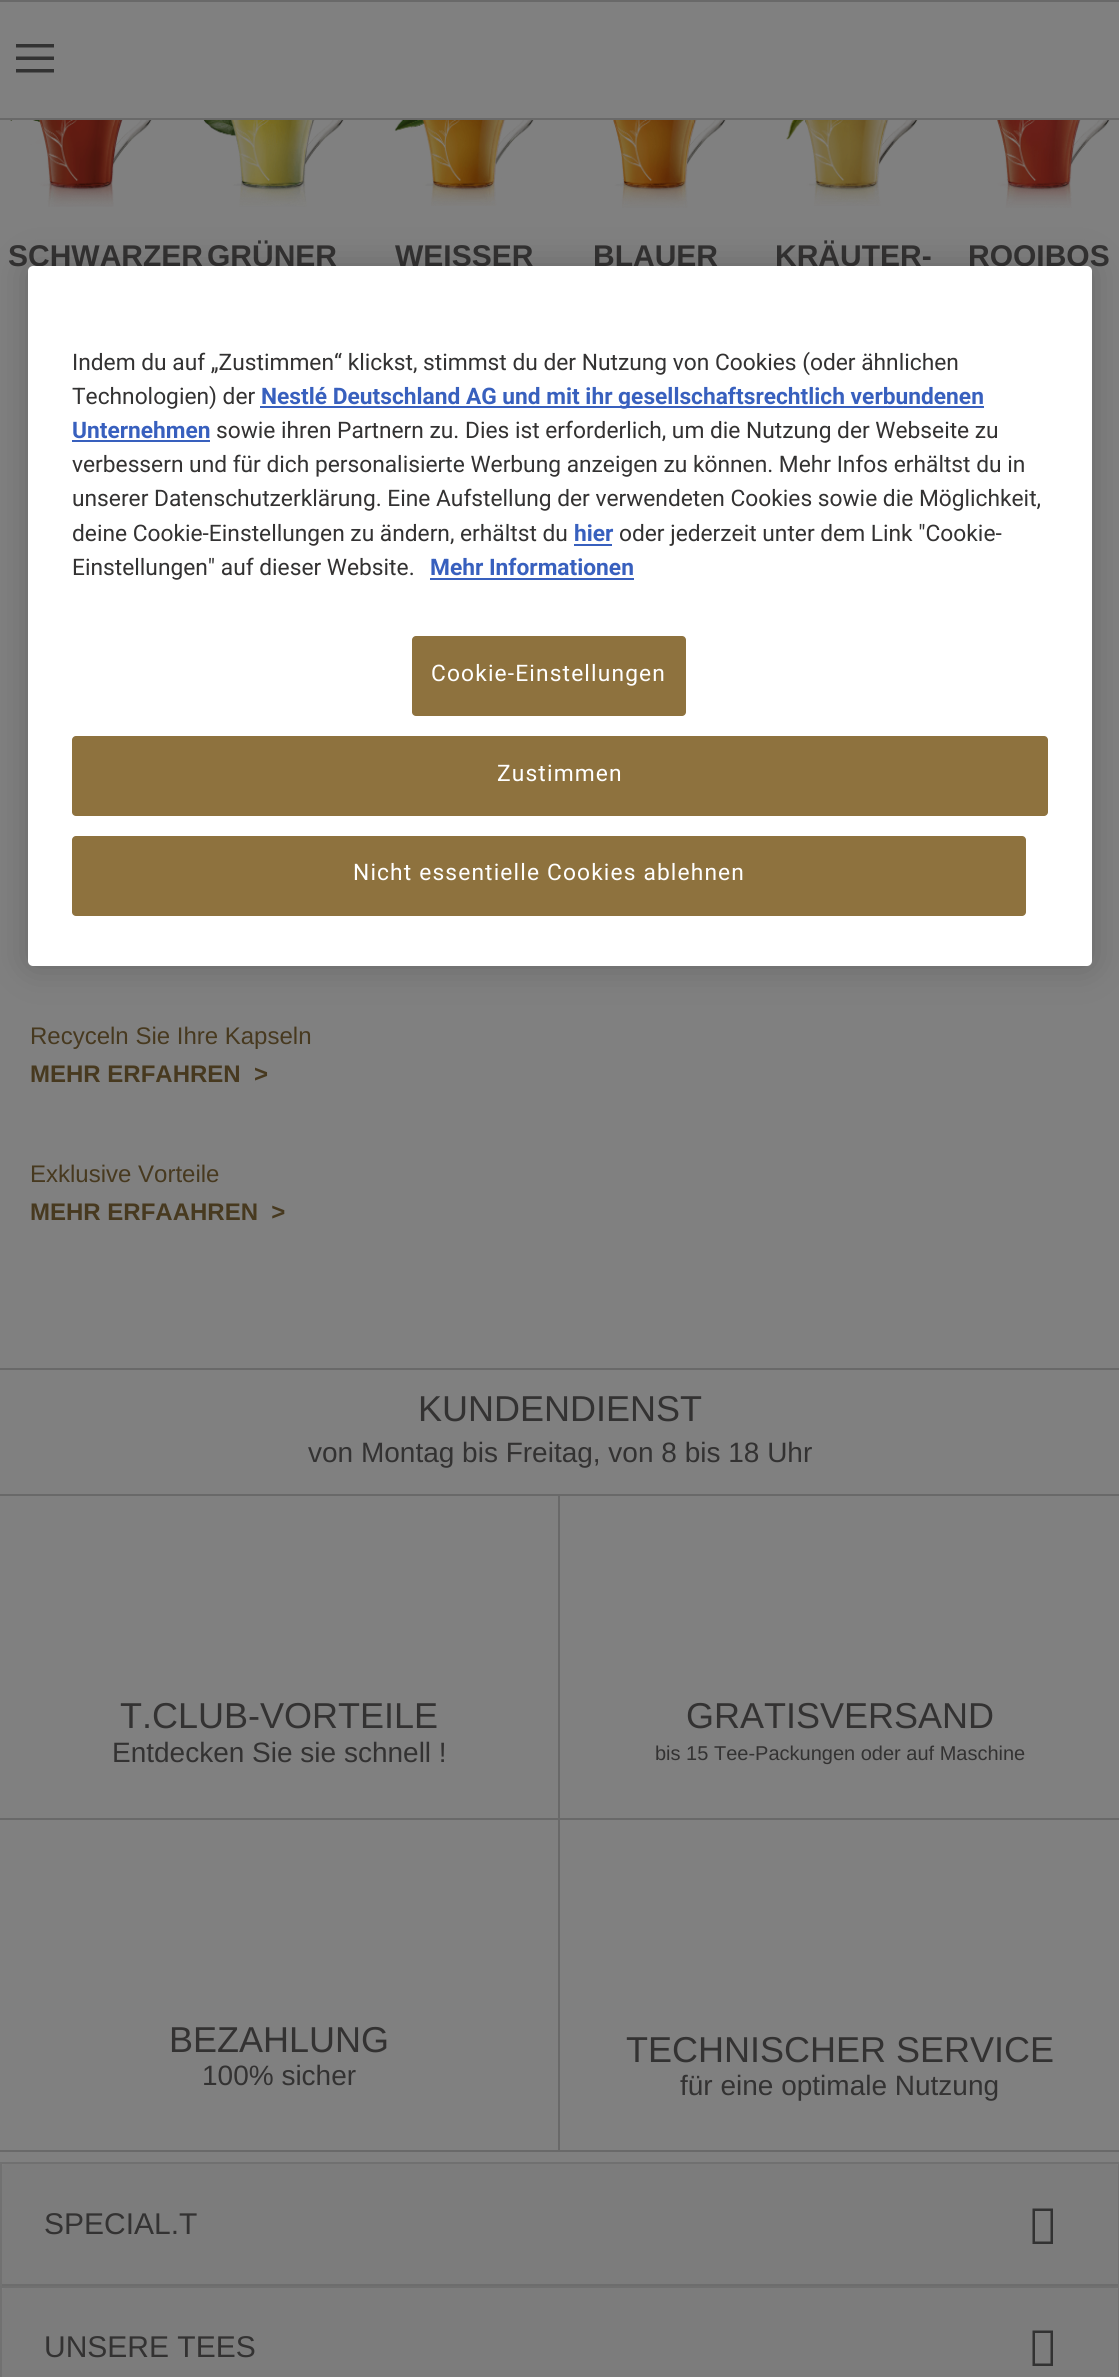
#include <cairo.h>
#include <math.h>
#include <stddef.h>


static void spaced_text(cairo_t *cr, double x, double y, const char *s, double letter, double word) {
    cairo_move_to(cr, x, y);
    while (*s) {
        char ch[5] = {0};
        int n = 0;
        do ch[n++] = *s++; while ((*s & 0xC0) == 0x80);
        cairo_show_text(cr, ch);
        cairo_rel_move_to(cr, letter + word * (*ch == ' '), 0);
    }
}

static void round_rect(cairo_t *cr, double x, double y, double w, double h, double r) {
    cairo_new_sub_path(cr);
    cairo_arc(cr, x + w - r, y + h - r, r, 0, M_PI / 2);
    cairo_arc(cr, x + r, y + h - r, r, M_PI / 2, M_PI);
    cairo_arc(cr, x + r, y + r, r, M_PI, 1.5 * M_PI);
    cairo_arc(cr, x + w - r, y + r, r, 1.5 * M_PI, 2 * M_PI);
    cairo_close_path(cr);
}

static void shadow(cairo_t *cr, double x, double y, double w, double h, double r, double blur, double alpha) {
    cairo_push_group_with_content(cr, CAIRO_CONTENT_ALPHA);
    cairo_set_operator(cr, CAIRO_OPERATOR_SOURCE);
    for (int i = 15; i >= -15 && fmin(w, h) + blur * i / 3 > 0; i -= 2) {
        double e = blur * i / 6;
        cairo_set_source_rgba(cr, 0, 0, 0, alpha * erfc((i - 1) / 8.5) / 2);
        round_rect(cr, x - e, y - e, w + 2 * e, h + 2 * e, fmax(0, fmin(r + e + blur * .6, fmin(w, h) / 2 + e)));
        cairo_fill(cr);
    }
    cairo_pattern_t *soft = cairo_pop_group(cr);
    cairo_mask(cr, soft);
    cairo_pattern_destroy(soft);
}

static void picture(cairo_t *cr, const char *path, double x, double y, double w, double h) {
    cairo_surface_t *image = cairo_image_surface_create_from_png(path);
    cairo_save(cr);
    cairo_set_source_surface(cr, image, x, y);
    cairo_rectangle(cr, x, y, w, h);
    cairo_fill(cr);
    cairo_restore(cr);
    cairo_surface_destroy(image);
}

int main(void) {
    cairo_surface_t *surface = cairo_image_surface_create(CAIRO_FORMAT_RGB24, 1119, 2377);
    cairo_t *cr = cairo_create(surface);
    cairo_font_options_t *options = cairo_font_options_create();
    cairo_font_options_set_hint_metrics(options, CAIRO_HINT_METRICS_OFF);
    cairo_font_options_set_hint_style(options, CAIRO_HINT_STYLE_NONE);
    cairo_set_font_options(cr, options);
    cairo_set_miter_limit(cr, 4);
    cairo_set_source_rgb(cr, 0.502, 0.502, 0.502);
    cairo_paint(cr);
    cairo_set_source_rgb(cr, 0.412, 0.412, 0.412);
    cairo_rectangle(cr, 0, 0, 1119, 2);
    cairo_fill(cr);
    cairo_rectangle(cr, 0, 118, 1119, 2);
    cairo_fill(cr);
    cairo_set_source_rgb(cr, 0.196, 0.196, 0.196);
    cairo_new_path(cr);
    cairo_move_to(cr, 16, 44);
    cairo_line_to(cr, 16, 47.5);
    cairo_line_to(cr, 54, 47.5);
    cairo_line_to(cr, 54, 44);
    cairo_close_path(cr);
    cairo_move_to(cr, 16, 60);
    cairo_line_to(cr, 54, 60);
    cairo_line_to(cr, 54, 56.5);
    cairo_line_to(cr, 16, 56.5);
    cairo_close_path(cr);
    cairo_move_to(cr, 16, 72.5);
    cairo_line_to(cr, 54, 72.5);
    cairo_line_to(cr, 54, 69);
    cairo_line_to(cr, 16, 69);
    cairo_close_path(cr);
    cairo_fill(cr);
    picture(cr, "img1.png", 10, 120, 142, 87);
    cairo_select_font_face(cr, "Liberation Sans", CAIRO_FONT_SLANT_NORMAL, CAIRO_FONT_WEIGHT_BOLD);
    cairo_set_font_size(cr, 30);
    cairo_set_source_rgb(cr, 0.2, 0.196, 0.196);
    cairo_move_to(cr, 8, 266);
    cairo_show_text(cr, "SCHWARZER");
    picture(cr, "img2.png", 203, 120, 141, 87);
    cairo_move_to(cr, 207, 266);
    cairo_show_text(cr, "GRÜNER");
    picture(cr, "img3.png", 394, 120, 140, 86);
    cairo_move_to(cr, 395, 266);
    cairo_show_text(cr, "WEISSER");
    picture(cr, "img4.png", 613, 120, 113, 88);
    cairo_move_to(cr, 593, 266);
    cairo_show_text(cr, "BLAUER");
    picture(cr, "img5.png", 786, 120, 132, 86);
    cairo_move_to(cr, 775, 266);
    cairo_show_text(cr, "KRÄUTER-");
    picture(cr, "img6.png", 997, 120, 113, 88);
    cairo_move_to(cr, 968, 266);
    cairo_show_text(cr, "ROOIBOS");
    cairo_select_font_face(cr, "Liberation Sans", CAIRO_FONT_SLANT_NORMAL, CAIRO_FONT_WEIGHT_NORMAL);
    cairo_set_font_size(cr, 24);
    cairo_set_source_rgb(cr, 0.278, 0.224, 0.122);
    cairo_move_to(cr, 30, 1044);
    cairo_show_text(cr, "Recyceln Sie Ihre Kapseln");
    cairo_select_font_face(cr, "Liberation Sans", CAIRO_FONT_SLANT_NORMAL, CAIRO_FONT_WEIGHT_BOLD);
    cairo_move_to(cr, 30, 1082);
    cairo_show_text(cr, "MEHR ERFAHREN  >");
    cairo_select_font_face(cr, "Liberation Sans", CAIRO_FONT_SLANT_NORMAL, CAIRO_FONT_WEIGHT_NORMAL);
    cairo_move_to(cr, 30, 1182);
    cairo_show_text(cr, "Exklusive Vorteile");
    cairo_select_font_face(cr, "Liberation Sans", CAIRO_FONT_SLANT_NORMAL, CAIRO_FONT_WEIGHT_BOLD);
    cairo_move_to(cr, 30, 1220);
    cairo_show_text(cr, "MEHR ERFAAHREN  >");
    cairo_set_source_rgb(cr, 0.412, 0.412, 0.412);
    cairo_rectangle(cr, 0, 1368, 1119, 2);
    cairo_fill(cr);
    cairo_select_font_face(cr, "Liberation Sans", CAIRO_FONT_SLANT_NORMAL, CAIRO_FONT_WEIGHT_NORMAL);
    cairo_set_font_size(cr, 36);
    cairo_set_source_rgb(cr, 0.2, 0.196, 0.196);
    cairo_move_to(cr, 418, 1421);
    cairo_show_text(cr, "KUNDENDIENST");
    cairo_set_font_size(cr, 28);
    cairo_move_to(cr, 308, 1462);
    cairo_show_text(cr, "von Montag bis Freitag, von 8 bis 18 Uhr");
    cairo_set_source_rgb(cr, 0.412, 0.412, 0.412);
    cairo_rectangle(cr, 0, 1494, 1119, 2);
    cairo_fill(cr);
    cairo_rectangle(cr, 558, 1494, 2, 658);
    cairo_fill(cr);
    cairo_rectangle(cr, 0, 1818, 1119, 2);
    cairo_fill(cr);
    cairo_set_font_size(cr, 36);
    cairo_set_source_rgb(cr, 0.2, 0.196, 0.196);
    cairo_move_to(cr, 120, 1728);
    cairo_show_text(cr, "T.CLUB-VORTEILE");
    cairo_set_font_size(cr, 28);
    cairo_move_to(cr, 112, 1762);
    cairo_show_text(cr, "Entdecken Sie sie schnell !");
    cairo_set_font_size(cr, 36);
    cairo_move_to(cr, 686, 1728);
    cairo_show_text(cr, "GRATISVERSAND");
    cairo_set_font_size(cr, 20);
    cairo_move_to(cr, 655, 1760);
    cairo_show_text(cr, "bis 15 Tee-Packungen oder auf Maschine");
    cairo_set_source_rgb(cr, 0.412, 0.412, 0.412);
    cairo_rectangle(cr, 0, 2150, 1119, 2);
    cairo_fill(cr);
    cairo_set_font_size(cr, 36);
    cairo_set_source_rgb(cr, 0.2, 0.196, 0.196);
    cairo_move_to(cr, 169, 2052);
    cairo_show_text(cr, "BEZAHLUNG");
    cairo_set_font_size(cr, 28);
    cairo_move_to(cr, 202, 2085);
    cairo_show_text(cr, "100% sicher");
    cairo_set_font_size(cr, 36);
    cairo_move_to(cr, 626, 2062);
    cairo_show_text(cr, "TECHNISCHER SERVICE");
    cairo_set_font_size(cr, 28);
    cairo_move_to(cr, 680, 2095);
    cairo_show_text(cr, "für eine optimale Nutzung");
    cairo_set_source_rgb(cr, 0.439, 0.439, 0.439);
    cairo_new_path(cr);
    cairo_move_to(cr, 0, 2162);
    cairo_line_to(cr, 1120, 2162);
    cairo_line_to(cr, 1118, 2164);
    cairo_line_to(cr, 2, 2164);
    cairo_close_path(cr);
    cairo_fill(cr);
    cairo_set_source_rgba(cr, 0, 0, 0, 0.12);
    cairo_new_path(cr);
    cairo_move_to(cr, 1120, 2162);
    cairo_line_to(cr, 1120, 2286);
    cairo_line_to(cr, 1118, 2286);
    cairo_line_to(cr, 1118, 2164);
    cairo_close_path(cr);
    cairo_fill(cr);
    cairo_new_path(cr);
    cairo_move_to(cr, 0, 2286);
    cairo_line_to(cr, 0, 2162);
    cairo_line_to(cr, 2, 2164);
    cairo_line_to(cr, 2, 2286);
    cairo_close_path(cr);
    cairo_fill(cr);
    cairo_set_source_rgb(cr, 0.486, 0.486, 0.486);
    cairo_new_path(cr);
    cairo_move_to(cr, 5, 2164);
    cairo_line_to(cr, 1115, 2164);
    cairo_curve_to(cr, 1116.5, 2164, 1118, 2165.5, 1118, 2167);
    cairo_line_to(cr, 1118, 2286);
    cairo_line_to(cr, 2, 2286);
    cairo_line_to(cr, 2, 2167);
    cairo_curve_to(cr, 2, 2165.5, 3.5, 2164, 5, 2164);
    cairo_close_path(cr);
    cairo_fill(cr);
    cairo_set_source_rgb(cr, 0.427, 0.427, 0.427);
    cairo_rectangle(cr, 2, 2284, 1116, 2);
    cairo_fill(cr);
    cairo_set_font_size(cr, 30);
    cairo_set_source_rgb(cr, 0.2, 0.196, 0.196);
    cairo_move_to(cr, 44, 2234);
    cairo_show_text(cr, "SPECIAL.T");
    cairo_set_source_rgb(cr, 0.196, 0.196, 0.196);
    cairo_new_path(cr);
    cairo_move_to(cr, 1032.5, 2244);
    cairo_line_to(cr, 1032.5, 2208.5);
    cairo_line_to(cr, 1053, 2208.5);
    cairo_line_to(cr, 1053, 2244);
    cairo_close_path(cr);
    cairo_move_to(cr, 1035, 2241.5);
    cairo_line_to(cr, 1050.5, 2241.5);
    cairo_line_to(cr, 1050.5, 2211);
    cairo_line_to(cr, 1035, 2211);
    cairo_close_path(cr);
    cairo_fill(cr);
    cairo_set_source_rgb(cr, 0.439, 0.439, 0.439);
    cairo_new_path(cr);
    cairo_move_to(cr, 0, 2286);
    cairo_line_to(cr, 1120, 2286);
    cairo_line_to(cr, 1118, 2288);
    cairo_line_to(cr, 2, 2288);
    cairo_close_path(cr);
    cairo_fill(cr);
    cairo_set_source_rgba(cr, 0, 0, 0, 0.12);
    cairo_new_path(cr);
    cairo_move_to(cr, 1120, 2286);
    cairo_line_to(cr, 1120, 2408);
    cairo_line_to(cr, 1118, 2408);
    cairo_line_to(cr, 1118, 2288);
    cairo_close_path(cr);
    cairo_fill(cr);
    cairo_new_path(cr);
    cairo_move_to(cr, 0, 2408);
    cairo_line_to(cr, 0, 2286);
    cairo_line_to(cr, 2, 2288);
    cairo_line_to(cr, 2, 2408);
    cairo_close_path(cr);
    cairo_fill(cr);
    cairo_set_source_rgb(cr, 0.486, 0.486, 0.486);
    cairo_new_path(cr);
    cairo_move_to(cr, 5, 2288);
    cairo_line_to(cr, 1115, 2288);
    cairo_curve_to(cr, 1116.5, 2288, 1118, 2289.5, 1118, 2291);
    cairo_line_to(cr, 1118, 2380);
    cairo_line_to(cr, 2, 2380);
    cairo_line_to(cr, 2, 2291);
    cairo_curve_to(cr, 2, 2289.5, 3.5, 2288, 5, 2288);
    cairo_close_path(cr);
    cairo_fill(cr);
    cairo_set_source_rgb(cr, 0.2, 0.196, 0.196);
    cairo_move_to(cr, 44, 2357);
    cairo_show_text(cr, "UNSERE TEES");
    cairo_set_source_rgb(cr, 0.196, 0.196, 0.196);
    cairo_new_path(cr);
    cairo_move_to(cr, 1032.5, 2366);
    cairo_line_to(cr, 1032.5, 2330.5);
    cairo_line_to(cr, 1053, 2330.5);
    cairo_line_to(cr, 1053, 2366);
    cairo_close_path(cr);
    cairo_move_to(cr, 1035, 2363.5);
    cairo_line_to(cr, 1050.5, 2363.5);
    cairo_line_to(cr, 1050.5, 2333);
    cairo_line_to(cr, 1035, 2333);
    cairo_close_path(cr);
    cairo_fill(cr);
    cairo_set_source_rgb(cr, 0, 0, 0);
    shadow(cr, 28, 266, 1064, 700, 5, 18, 0.2);
    cairo_set_source_rgb(cr, 1, 1, 1);
    round_rect(cr, 28, 266, 1064, 700, 5);
    cairo_fill(cr);
    cairo_select_font_face(cr, "Roboto", CAIRO_FONT_SLANT_NORMAL, CAIRO_FONT_WEIGHT_NORMAL);
    cairo_set_font_size(cr, 22.75);
    cairo_set_source_rgb(cr, 0.2, 0.196, 0.196);
    cairo_move_to(cr, 72, 370);
    cairo_show_text(cr, "Indem du auf „Zustimmen“ klickst, stimmst du der Nutzung von Cookies (oder ähnlichen");
    cairo_move_to(cr, 72, 404);
    cairo_show_text(cr, "Technologien) der");
    cairo_set_source_rgb(cr, 0.22, 0.376, 0.745);
    cairo_rectangle(cr, 260, 406, 724, 2);
    cairo_fill(cr);
    cairo_select_font_face(cr, "Roboto", CAIRO_FONT_SLANT_NORMAL, CAIRO_FONT_WEIGHT_BOLD);
    cairo_move_to(cr, 261, 404);
    cairo_show_text(cr, "Nestlé Deutschland AG und mit ihr gesellschaftsrechtlich verbundenen");
    cairo_move_to(cr, 72, 438);
    cairo_show_text(cr, "Unternehmen");
    cairo_rectangle(cr, 72, 440, 138, 2);
    cairo_fill(cr);
    cairo_select_font_face(cr, "Roboto", CAIRO_FONT_SLANT_NORMAL, CAIRO_FONT_WEIGHT_NORMAL);
    cairo_set_source_rgb(cr, 0.2, 0.196, 0.196);
    cairo_move_to(cr, 216, 438);
    cairo_show_text(cr, "sowie ihren Partnern zu. Dies ist erforderlich, um die Nutzung der Webseite zu");
    cairo_move_to(cr, 72, 472);
    cairo_show_text(cr, "verbessern und für dich personalisierte Werbung anzeigen zu können. Mehr Infos erhältst du in");
    cairo_move_to(cr, 72, 506);
    cairo_show_text(cr, "unserer Datenschutzerklärung. Eine Aufstellung der verwendeten Cookies sowie die Möglichkeit,");
    cairo_move_to(cr, 72, 541);
    cairo_show_text(cr, "deine Cookie-Einstellungen zu ändern, erhältst du");
    cairo_select_font_face(cr, "Roboto", CAIRO_FONT_SLANT_NORMAL, CAIRO_FONT_WEIGHT_BOLD);
    cairo_set_source_rgb(cr, 0.22, 0.376, 0.745);
    cairo_move_to(cr, 574, 541);
    cairo_show_text(cr, "hier");
    cairo_rectangle(cr, 574, 544, 38, 2);
    cairo_fill(cr);
    cairo_select_font_face(cr, "Roboto", CAIRO_FONT_SLANT_NORMAL, CAIRO_FONT_WEIGHT_NORMAL);
    cairo_set_source_rgb(cr, 0.2, 0.196, 0.196);
    cairo_move_to(cr, 619, 541);
    cairo_show_text(cr, "oder jederzeit unter dem Link \"Cookie-");
    cairo_move_to(cr, 72, 575);
    cairo_show_text(cr, "Einstellungen\" auf dieser Website.");
    cairo_select_font_face(cr, "Roboto", CAIRO_FONT_SLANT_NORMAL, CAIRO_FONT_WEIGHT_BOLD);
    cairo_set_source_rgb(cr, 0.22, 0.376, 0.745);
    cairo_move_to(cr, 430, 575);
    cairo_show_text(cr, "Mehr Informationen");
    cairo_rectangle(cr, 430, 578, 204, 2);
    cairo_fill(cr);
    cairo_set_source_rgb(cr, 0.557, 0.447, 0.243);
    round_rect(cr, 412, 636, 274, 80, 4);
    cairo_fill(cr);
    cairo_select_font_face(cr, "Roboto", CAIRO_FONT_SLANT_NORMAL, CAIRO_FONT_WEIGHT_NORMAL);
    cairo_set_source_rgb(cr, 1, 1, 1);
    spaced_text(cr, 431, 681, "Cookie-Einstellungen", 1.15, 0);
    cairo_set_source_rgb(cr, 0.557, 0.447, 0.243);
    round_rect(cr, 72, 736, 976, 80, 4);
    cairo_fill(cr);
    cairo_set_source_rgb(cr, 1, 1, 1);
    spaced_text(cr, 497, 781, "Zustimmen", 1.15, 0);
    cairo_set_source_rgb(cr, 0.557, 0.447, 0.243);
    round_rect(cr, 72, 836, 954, 80, 4);
    cairo_fill(cr);
    cairo_set_source_rgb(cr, 1, 1, 1);
    spaced_text(cr, 353, 880, "Nicht essentielle Cookies ablehnen", 1.15, 0);
    cairo_surface_write_to_png(surface, "page.png");
    cairo_font_options_destroy(options);
    cairo_destroy(cr);
    cairo_surface_destroy(surface);
    return 0;
}
